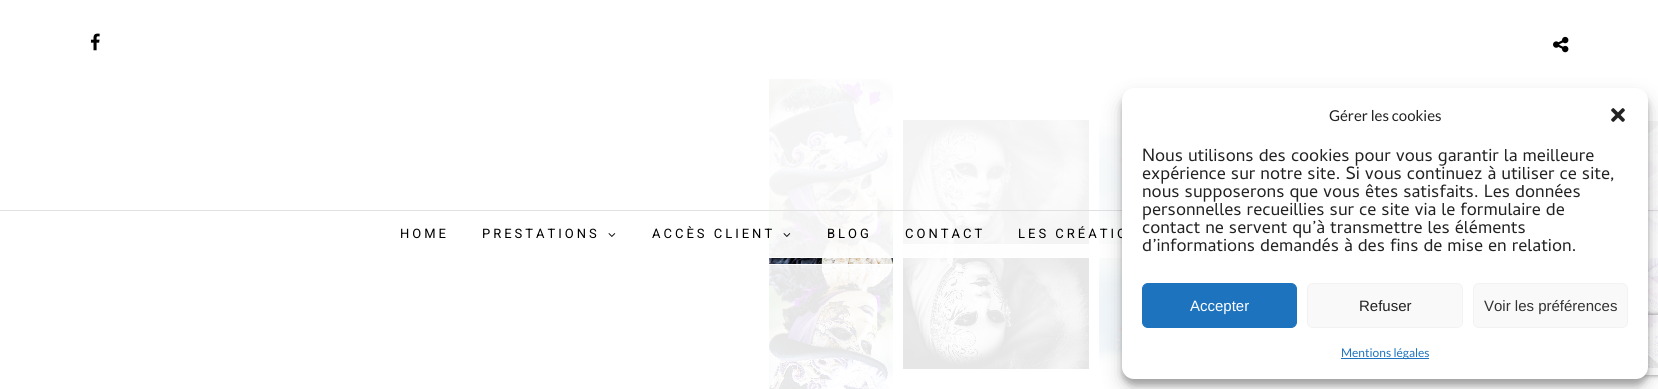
#include <cairo.h>
#include <math.h>
#include <stddef.h>


static void spaced_text(cairo_t *cr, double x, double y, const char *s, double letter, double word) {
    cairo_move_to(cr, x, y);
    while (*s) {
        char ch[5] = {0};
        int n = 0;
        do ch[n++] = *s++; while ((*s & 0xC0) == 0x80);
        cairo_show_text(cr, ch);
        cairo_rel_move_to(cr, letter + word * (*ch == ' '), 0);
    }
}

static void round_rect(cairo_t *cr, double x, double y, double w, double h, double r) {
    cairo_new_sub_path(cr);
    cairo_arc(cr, x + w - r, y + h - r, r, 0, M_PI / 2);
    cairo_arc(cr, x + r, y + h - r, r, M_PI / 2, M_PI);
    cairo_arc(cr, x + r, y + r, r, M_PI, 1.5 * M_PI);
    cairo_arc(cr, x + w - r, y + r, r, 1.5 * M_PI, 2 * M_PI);
    cairo_close_path(cr);
}

static void shadow(cairo_t *cr, double x, double y, double w, double h, double r, double blur, double alpha) {
    cairo_push_group_with_content(cr, CAIRO_CONTENT_ALPHA);
    cairo_set_operator(cr, CAIRO_OPERATOR_SOURCE);
    for (int i = 15; i >= -15 && fmin(w, h) + blur * i / 3 > 0; i -= 2) {
        double e = blur * i / 6;
        cairo_set_source_rgba(cr, 0, 0, 0, alpha * erfc((i - 1) / 8.5) / 2);
        round_rect(cr, x - e, y - e, w + 2 * e, h + 2 * e, fmax(0, fmin(r + e + blur * .6, fmin(w, h) / 2 + e)));
        cairo_fill(cr);
    }
    cairo_pattern_t *soft = cairo_pop_group(cr);
    cairo_mask(cr, soft);
    cairo_pattern_destroy(soft);
}

static void picture(cairo_t *cr, const char *path, double x, double y, double w, double h) {
    cairo_surface_t *image = cairo_image_surface_create_from_png(path);
    cairo_save(cr);
    cairo_set_source_surface(cr, image, x, y);
    cairo_rectangle(cr, x, y, w, h);
    cairo_fill(cr);
    cairo_restore(cr);
    cairo_surface_destroy(image);
}

int main(void) {
    cairo_surface_t *surface = cairo_image_surface_create(CAIRO_FORMAT_RGB24, 1658, 389);
    cairo_t *cr = cairo_create(surface);
    cairo_font_options_t *options = cairo_font_options_create();
    cairo_font_options_set_hint_metrics(options, CAIRO_HINT_METRICS_OFF);
    cairo_font_options_set_hint_style(options, CAIRO_HINT_STYLE_NONE);
    cairo_set_font_options(cr, options);
    cairo_set_miter_limit(cr, 4);
    cairo_set_source_rgb(cr, 1, 1, 1);
    cairo_paint(cr);
    picture(cr, "img1.png", 769, 79, 124, 185);
    picture(cr, "img2.png", 903, 120, 186, 124);
    picture(cr, "img3.png", 1099, 121, 23, 123);
    picture(cr, "img4.png", 1648, 121, 10, 123);
    picture(cr, "img5.png", 769, 265, 124, 124);
    picture(cr, "img6.png", 903, 245, 186, 124);
    picture(cr, "img7.png", 1099, 245, 24, 123);
    picture(cr, "img8.png", 1647, 245, 11, 123);
    cairo_set_source_rgba(cr, 1, 1, 1, 0.95);
    cairo_rectangle(cr, 769, 79, 889, 178);
    cairo_fill(cr);
    cairo_set_source_rgb(cr, 1, 1, 1);
    cairo_rectangle(cr, 769, 257, 889, 1);
    cairo_fill(cr);
    cairo_set_source_rgb(cr, 0.882, 0.882, 0.882);
    cairo_rectangle(cr, 0, 210, 1658, 1);
    cairo_fill(cr);
    picture(cr, "img9.png", 90, 33, 10, 18);
    picture(cr, "img10.png", 1553, 36, 16, 17);
    cairo_select_font_face(cr, "Roboto", CAIRO_FONT_SLANT_NORMAL, CAIRO_FONT_WEIGHT_NORMAL);
    cairo_set_font_size(cr, 13);
    cairo_set_source_rgb(cr, 0, 0, 0);
    spaced_text(cr, 400, 238, "HOME", 3, 0);
    spaced_text(cr, 482, 238, "PRESTATIONS", 3, 0);
    picture(cr, "img11.png", 608, 233, 8, 4);
    spaced_text(cr, 652, 238, "ACCÈS CLIENT", 3, 0);
    picture(cr, "img12.png", 783, 233, 8, 4);
    spaced_text(cr, 827, 238, "BLOG", 3, 0);
    spaced_text(cr, 905, 238, "CONTACT", 3, 0);
    spaced_text(cr, 1018, 238, "LES CRÉATIO", 3, 0);
    cairo_set_source_rgb(cr, 0, 0, 0);
    shadow(cr, 1122, 94, 526, 291, 12, 3, 0.23);
    shadow(cr, 1122, 98, 526, 291, 12, 10, 0.19);
    cairo_save(cr);
    cairo_set_fill_rule(cr, CAIRO_FILL_RULE_EVEN_ODD);
    cairo_new_path(cr);
    cairo_move_to(cr, 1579, 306);
    cairo_line_to(cr, 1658, 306);
    cairo_line_to(cr, 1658, 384);
    cairo_line_to(cr, 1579, 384);
    cairo_close_path(cr);
    cairo_move_to(cr, 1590, 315);
    cairo_line_to(cr, 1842, 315);
    cairo_curve_to(cr, 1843, 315, 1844, 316, 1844, 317);
    cairo_line_to(cr, 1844, 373);
    cairo_curve_to(cr, 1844, 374, 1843, 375, 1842, 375);
    cairo_line_to(cr, 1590, 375);
    cairo_curve_to(cr, 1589, 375, 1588, 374, 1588, 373);
    cairo_line_to(cr, 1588, 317);
    cairo_curve_to(cr, 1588, 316, 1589, 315, 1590, 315);
    cairo_close_path(cr);
    cairo_clip(cr);
    cairo_set_source_rgb(cr, 0.502, 0.502, 0.502);
    shadow(cr, 1588, 315, 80, 60, 2, 2.5, 1);
    cairo_restore(cr);
    cairo_set_source_rgb(cr, 1, 1, 1);
    round_rect(cr, 1122, 88, 526, 291, 12);
    cairo_fill(cr);
    cairo_select_font_face(cr, "Lato", CAIRO_FONT_SLANT_NORMAL, CAIRO_FONT_WEIGHT_NORMAL);
    cairo_set_font_size(cr, 15);
    cairo_set_source_rgb(cr, 0.133, 0.133, 0.133);
    cairo_move_to(cr, 1329, 121);
    cairo_show_text(cr, "Gérer les cookies");
    picture(cr, "img13.png", 1611, 108, 14, 14);
    cairo_select_font_face(cr, "Cambay", CAIRO_FONT_SLANT_NORMAL, CAIRO_FONT_WEIGHT_NORMAL);
    cairo_set_font_size(cr, 18);
    cairo_move_to(cr, 1142, 161);
    cairo_show_text(cr, "Nous utilisons des cookies pour vous garantir la meilleure");
    cairo_move_to(cr, 1142, 179);
    cairo_show_text(cr, "expérience sur notre site. Si vous continuez à utiliser ce site,");
    cairo_move_to(cr, 1142, 197);
    cairo_show_text(cr, "nous supposerons que vous êtes satisfaits. Les données");
    cairo_move_to(cr, 1142, 215);
    cairo_show_text(cr, "personnelles recueillies sur ce site via le formulaire de");
    cairo_move_to(cr, 1142, 233);
    cairo_show_text(cr, "contact ne servent qu’à transmettre les éléments");
    cairo_move_to(cr, 1142, 251);
    cairo_show_text(cr, "d’informations demandés à des fins de mise en relation.");
    cairo_set_source_rgb(cr, 0.118, 0.451, 0.745);
    round_rect(cr, 1142.5, 283.5, 154, 44, 5.5);
    cairo_fill_preserve(cr);
    cairo_set_line_width(cr, 1);
    cairo_stroke(cr);
    cairo_select_font_face(cr, "Liberation Sans", CAIRO_FONT_SLANT_NORMAL, CAIRO_FONT_WEIGHT_NORMAL);
    cairo_set_font_size(cr, 15);
    cairo_set_source_rgb(cr, 1, 1, 1);
    cairo_move_to(cr, 1190, 311);
    cairo_show_text(cr, "Accepter");
    cairo_set_source_rgb(cr, 0.976, 0.976, 0.976);
    round_rect(cr, 1307.5, 283.5, 155, 44, 5.5);
    cairo_fill_preserve(cr);
    cairo_set_source_rgb(cr, 0.949, 0.949, 0.949);
    cairo_stroke(cr);
    cairo_set_source_rgb(cr, 0.133, 0.133, 0.133);
    cairo_move_to(cr, 1359, 311);
    cairo_show_text(cr, "Refuser");
    cairo_set_source_rgb(cr, 0.976, 0.976, 0.976);
    round_rect(cr, 1473.5, 283.5, 154, 44, 5.5);
    cairo_fill_preserve(cr);
    cairo_set_source_rgb(cr, 0.949, 0.949, 0.949);
    cairo_stroke(cr);
    cairo_set_source_rgb(cr, 0.2, 0.2, 0.2);
    cairo_move_to(cr, 1484, 311);
    cairo_show_text(cr, "Voir les préférences");
    cairo_set_source_rgb(cr, 0.118, 0.451, 0.745);
    cairo_rectangle(cr, 1341, 358, 88, 1);
    cairo_fill(cr);
    cairo_select_font_face(cr, "Lato", CAIRO_FONT_SLANT_NORMAL, CAIRO_FONT_WEIGHT_NORMAL);
    cairo_set_font_size(cr, 12);
    cairo_move_to(cr, 1341, 357);
    cairo_show_text(cr, "Mentions légales");
    cairo_surface_write_to_png(surface, "page.png");
    cairo_font_options_destroy(options);
    cairo_destroy(cr);
    cairo_surface_destroy(surface);
    return 0;
}
